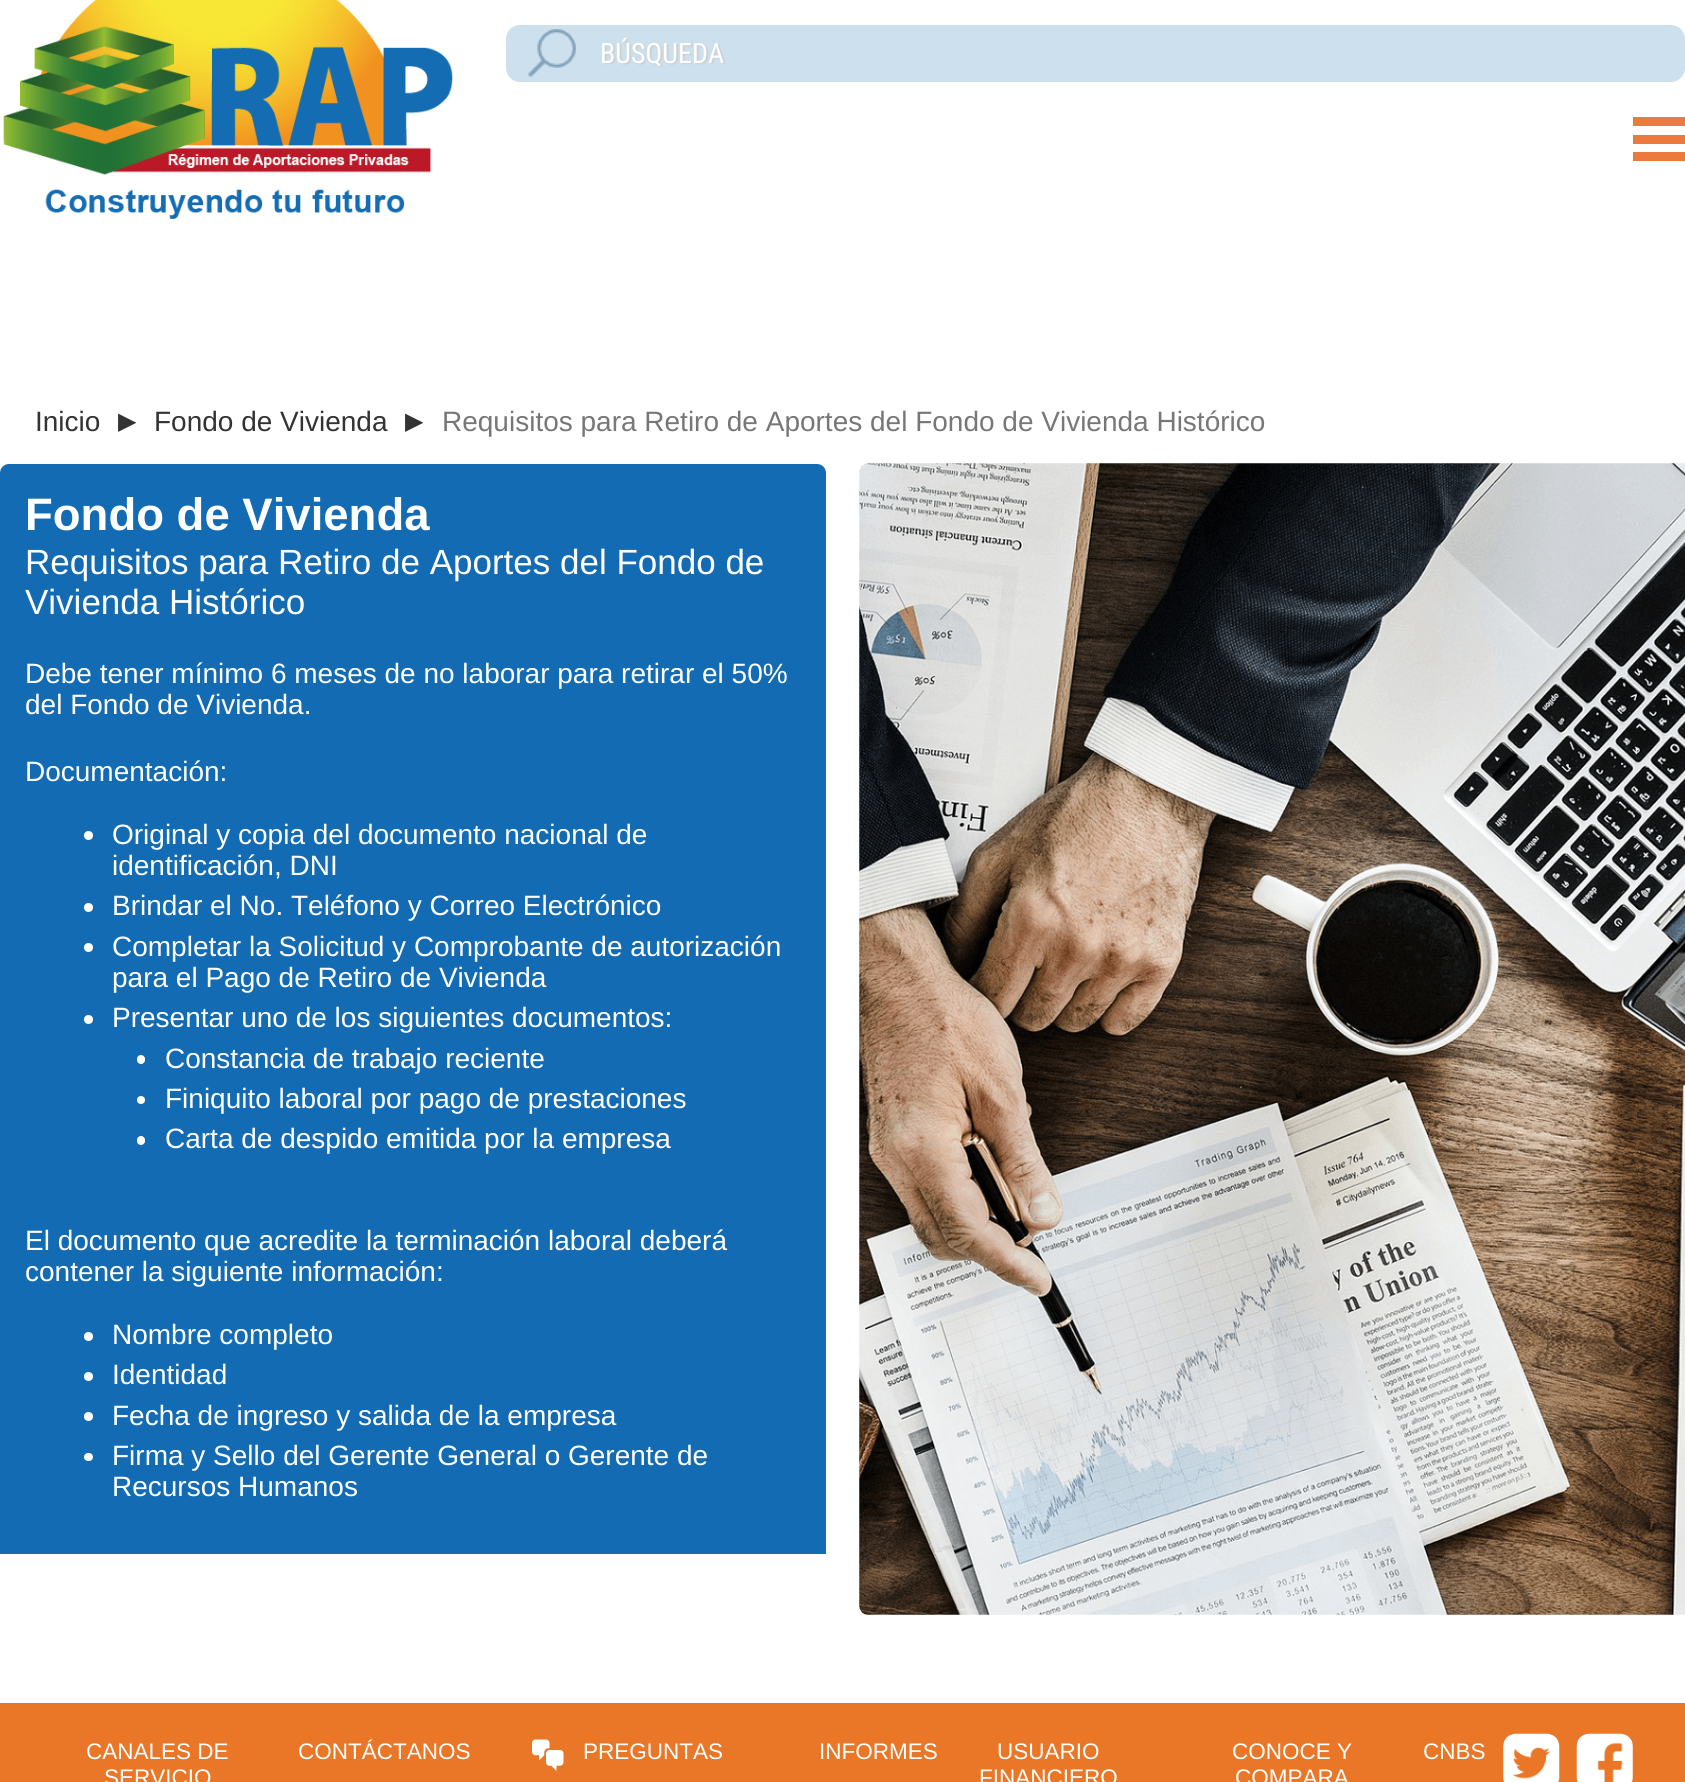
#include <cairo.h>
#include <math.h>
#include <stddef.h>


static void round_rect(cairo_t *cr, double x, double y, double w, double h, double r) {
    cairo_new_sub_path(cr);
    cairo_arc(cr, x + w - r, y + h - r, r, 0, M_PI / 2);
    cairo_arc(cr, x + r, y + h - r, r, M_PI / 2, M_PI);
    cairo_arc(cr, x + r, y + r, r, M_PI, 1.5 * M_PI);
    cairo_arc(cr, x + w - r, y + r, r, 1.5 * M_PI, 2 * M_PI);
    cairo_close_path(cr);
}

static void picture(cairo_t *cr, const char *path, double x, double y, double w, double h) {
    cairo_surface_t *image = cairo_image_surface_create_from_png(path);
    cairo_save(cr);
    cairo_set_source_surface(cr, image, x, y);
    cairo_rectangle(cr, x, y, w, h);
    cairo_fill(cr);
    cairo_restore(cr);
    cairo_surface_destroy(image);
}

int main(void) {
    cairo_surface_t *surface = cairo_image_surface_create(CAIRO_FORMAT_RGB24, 1685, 1782);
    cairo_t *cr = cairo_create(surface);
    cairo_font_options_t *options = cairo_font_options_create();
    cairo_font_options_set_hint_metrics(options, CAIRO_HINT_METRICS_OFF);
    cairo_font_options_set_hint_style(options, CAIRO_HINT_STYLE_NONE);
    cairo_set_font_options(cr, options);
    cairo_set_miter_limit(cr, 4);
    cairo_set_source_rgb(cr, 1, 1, 1);
    cairo_paint(cr);
    picture(cr, "img1.png", 3, 0, 450, 219);
    cairo_set_source_rgb(cr, 0.804, 0.878, 0.933);
    round_rect(cr, 506, 25, 1179, 57, 14);
    cairo_fill(cr);
    picture(cr, "img2.png", 528, 29, 198, 48);
    cairo_select_font_face(cr, "Roboto Condensed", CAIRO_FONT_SLANT_NORMAL, CAIRO_FONT_WEIGHT_NORMAL);
    cairo_set_font_size(cr, 28);
    cairo_set_source_rgb(cr, 1, 1, 1);
    cairo_move_to(cr, 600, 63);
    cairo_show_text(cr, "BÚSQUEDA");
    cairo_set_source_rgb(cr, 0.922, 0.478, 0.247);
    cairo_rectangle(cr, 1633, 117, 52, 9);
    cairo_fill(cr);
    cairo_rectangle(cr, 1633, 135, 52, 9);
    cairo_fill(cr);
    cairo_rectangle(cr, 1633, 152, 52, 9);
    cairo_fill(cr);
    cairo_select_font_face(cr, "Liberation Sans", CAIRO_FONT_SLANT_NORMAL, CAIRO_FONT_WEIGHT_NORMAL);
    cairo_set_source_rgb(cr, 0.2, 0.2, 0.2);
    cairo_move_to(cr, 35, 431);
    cairo_show_text(cr, "Inicio");
    cairo_select_font_face(cr, "DejaVu Sans", CAIRO_FONT_SLANT_NORMAL, CAIRO_FONT_WEIGHT_NORMAL);
    cairo_set_font_size(cr, 24);
    cairo_move_to(cr, 118, 429);
    cairo_show_text(cr, "▶");
    cairo_select_font_face(cr, "Liberation Sans", CAIRO_FONT_SLANT_NORMAL, CAIRO_FONT_WEIGHT_NORMAL);
    cairo_set_font_size(cr, 28);
    cairo_move_to(cr, 154, 431);
    cairo_show_text(cr, "Fondo de Vivienda");
    cairo_select_font_face(cr, "DejaVu Sans", CAIRO_FONT_SLANT_NORMAL, CAIRO_FONT_WEIGHT_NORMAL);
    cairo_set_font_size(cr, 24);
    cairo_move_to(cr, 405, 429);
    cairo_show_text(cr, "▶");
    cairo_select_font_face(cr, "Liberation Sans", CAIRO_FONT_SLANT_NORMAL, CAIRO_FONT_WEIGHT_NORMAL);
    cairo_set_font_size(cr, 28);
    cairo_set_source_rgb(cr, 0.467, 0.467, 0.467);
    cairo_move_to(cr, 442, 431);
    cairo_show_text(cr, "Requisitos para Retiro de Aportes del Fondo de Vivienda Histórico");
    cairo_set_source_rgb(cr, 0.078, 0.42, 0.702);
    cairo_new_path(cr);
    cairo_move_to(cr, 9, 464);
    cairo_line_to(cr, 817, 464);
    cairo_curve_to(cr, 822, 464, 826, 468, 826, 473);
    cairo_line_to(cr, 826, 1554);
    cairo_line_to(cr, 0, 1554);
    cairo_line_to(cr, 0, 473);
    cairo_curve_to(cr, 0, 468, 4, 464, 9, 464);
    cairo_close_path(cr);
    cairo_fill(cr);
    cairo_select_font_face(cr, "Liberation Sans", CAIRO_FONT_SLANT_NORMAL, CAIRO_FONT_WEIGHT_BOLD);
    cairo_set_font_size(cr, 45.5);
    cairo_set_source_rgb(cr, 1, 1, 1);
    cairo_move_to(cr, 25, 530);
    cairo_show_text(cr, "Fondo de Vivienda");
    cairo_select_font_face(cr, "Liberation Sans", CAIRO_FONT_SLANT_NORMAL, CAIRO_FONT_WEIGHT_NORMAL);
    cairo_set_font_size(cr, 35);
    cairo_move_to(cr, 25, 574);
    cairo_show_text(cr, "Requisitos para Retiro de Aportes del Fondo de");
    cairo_move_to(cr, 25, 614);
    cairo_show_text(cr, "Vivienda Histórico");
    cairo_set_font_size(cr, 28);
    cairo_move_to(cr, 25, 683);
    cairo_show_text(cr, "Debe tener mínimo 6 meses de no laborar para retirar el 50%");
    cairo_move_to(cr, 25, 714);
    cairo_show_text(cr, "del Fondo de Vivienda.");
    cairo_move_to(cr, 25, 781);
    cairo_show_text(cr, "Documentación:");
    cairo_new_path(cr);
    cairo_arc(cr, 88.5, 835.5, 4.5, 0, 2 * M_PI);
    cairo_fill(cr);
    cairo_move_to(cr, 112, 844);
    cairo_show_text(cr, "Original y copia del documento nacional de");
    cairo_move_to(cr, 112, 875);
    cairo_show_text(cr, "identificación, DNI");
    cairo_new_path(cr);
    cairo_arc(cr, 88.5, 907.5, 4.5, 0, 2 * M_PI);
    cairo_fill(cr);
    cairo_move_to(cr, 112, 915);
    cairo_show_text(cr, "Brindar el No. Teléfono y Correo Electrónico");
    cairo_new_path(cr);
    cairo_arc(cr, 88.5, 947.5, 4.5, 0, 2 * M_PI);
    cairo_fill(cr);
    cairo_move_to(cr, 112, 956);
    cairo_show_text(cr, "Completar la Solicitud y Comprobante de autorización");
    cairo_move_to(cr, 112, 987);
    cairo_show_text(cr, "para el Pago de Retiro de Vivienda");
    cairo_new_path(cr);
    cairo_arc(cr, 88.5, 1019.5, 4.5, 0, 2 * M_PI);
    cairo_fill(cr);
    cairo_move_to(cr, 112, 1027);
    cairo_show_text(cr, "Presentar uno de los siguientes documentos:");
    round_rect(cr, 137, 1055, 8, 9, 4);
    cairo_fill(cr);
    cairo_move_to(cr, 165, 1068);
    cairo_show_text(cr, "Constancia de trabajo reciente");
    cairo_new_path(cr);
    cairo_arc(cr, 141, 1100, 4, 0, 2 * M_PI);
    cairo_fill(cr);
    cairo_move_to(cr, 165, 1108);
    cairo_show_text(cr, "Finiquito laboral por pago de prestaciones");
    round_rect(cr, 137, 1136, 8, 9, 4);
    cairo_fill(cr);
    cairo_move_to(cr, 165, 1148);
    cairo_show_text(cr, "Carta de despido emitida por la empresa");
    cairo_move_to(cr, 25, 1250);
    cairo_show_text(cr, "El documento que acredite la terminación laboral deberá");
    cairo_move_to(cr, 25, 1281);
    cairo_show_text(cr, "contener la siguiente información:");
    cairo_new_path(cr);
    cairo_arc(cr, 88.5, 1336.5, 4.5, 0, 2 * M_PI);
    cairo_fill(cr);
    cairo_move_to(cr, 112, 1344);
    cairo_show_text(cr, "Nombre completo");
    cairo_new_path(cr);
    cairo_arc(cr, 88.5, 1376.5, 4.5, 0, 2 * M_PI);
    cairo_fill(cr);
    cairo_move_to(cr, 112, 1384);
    cairo_show_text(cr, "Identidad");
    cairo_new_path(cr);
    cairo_arc(cr, 88.5, 1416.5, 4.5, 0, 2 * M_PI);
    cairo_fill(cr);
    cairo_move_to(cr, 112, 1425);
    cairo_show_text(cr, "Fecha de ingreso y salida de la empresa");
    round_rect(cr, 84, 1453, 9, 8, 4);
    cairo_fill(cr);
    cairo_move_to(cr, 112, 1465);
    cairo_show_text(cr, "Firma y Sello del Gerente General o Gerente de");
    cairo_move_to(cr, 112, 1496);
    cairo_show_text(cr, "Recursos Humanos");
    picture(cr, "img3.png", 859, 463, 826, 1152);
    cairo_set_source_rgb(cr, 0.914, 0.467, 0.153);
    cairo_rectangle(cr, 0, 1703, 1685, 79);
    cairo_fill(cr);
    cairo_set_font_size(cr, 22.5);
    cairo_set_source_rgb(cr, 1, 1, 1);
    cairo_move_to(cr, 86, 1759);
    cairo_show_text(cr, "CANALES DE");
    cairo_move_to(cr, 104, 1785);
    cairo_show_text(cr, "SERVICIO");
    cairo_move_to(cr, 298, 1759);
    cairo_show_text(cr, "CONTÁCTANOS");
    picture(cr, "img4.png", 532, 1739, 32, 32);
    cairo_move_to(cr, 583, 1759);
    cairo_show_text(cr, "PREGUNTAS");
    cairo_move_to(cr, 819, 1759);
    cairo_show_text(cr, "INFORMES");
    cairo_move_to(cr, 997, 1759);
    cairo_show_text(cr, "USUARIO");
    cairo_move_to(cr, 979, 1785);
    cairo_show_text(cr, "FINANCIERO");
    cairo_move_to(cr, 1232, 1759);
    cairo_show_text(cr, "CONOCE Y");
    cairo_move_to(cr, 1235, 1785);
    cairo_show_text(cr, "COMPARA");
    cairo_move_to(cr, 1423, 1759);
    cairo_show_text(cr, "CNBS");
    picture(cr, "img5.png", 1503, 1733, 57, 49);
    picture(cr, "img6.png", 1576, 1733, 57, 49);
    cairo_surface_write_to_png(surface, "page.png");
    cairo_font_options_destroy(options);
    cairo_destroy(cr);
    cairo_surface_destroy(surface);
    return 0;
}
